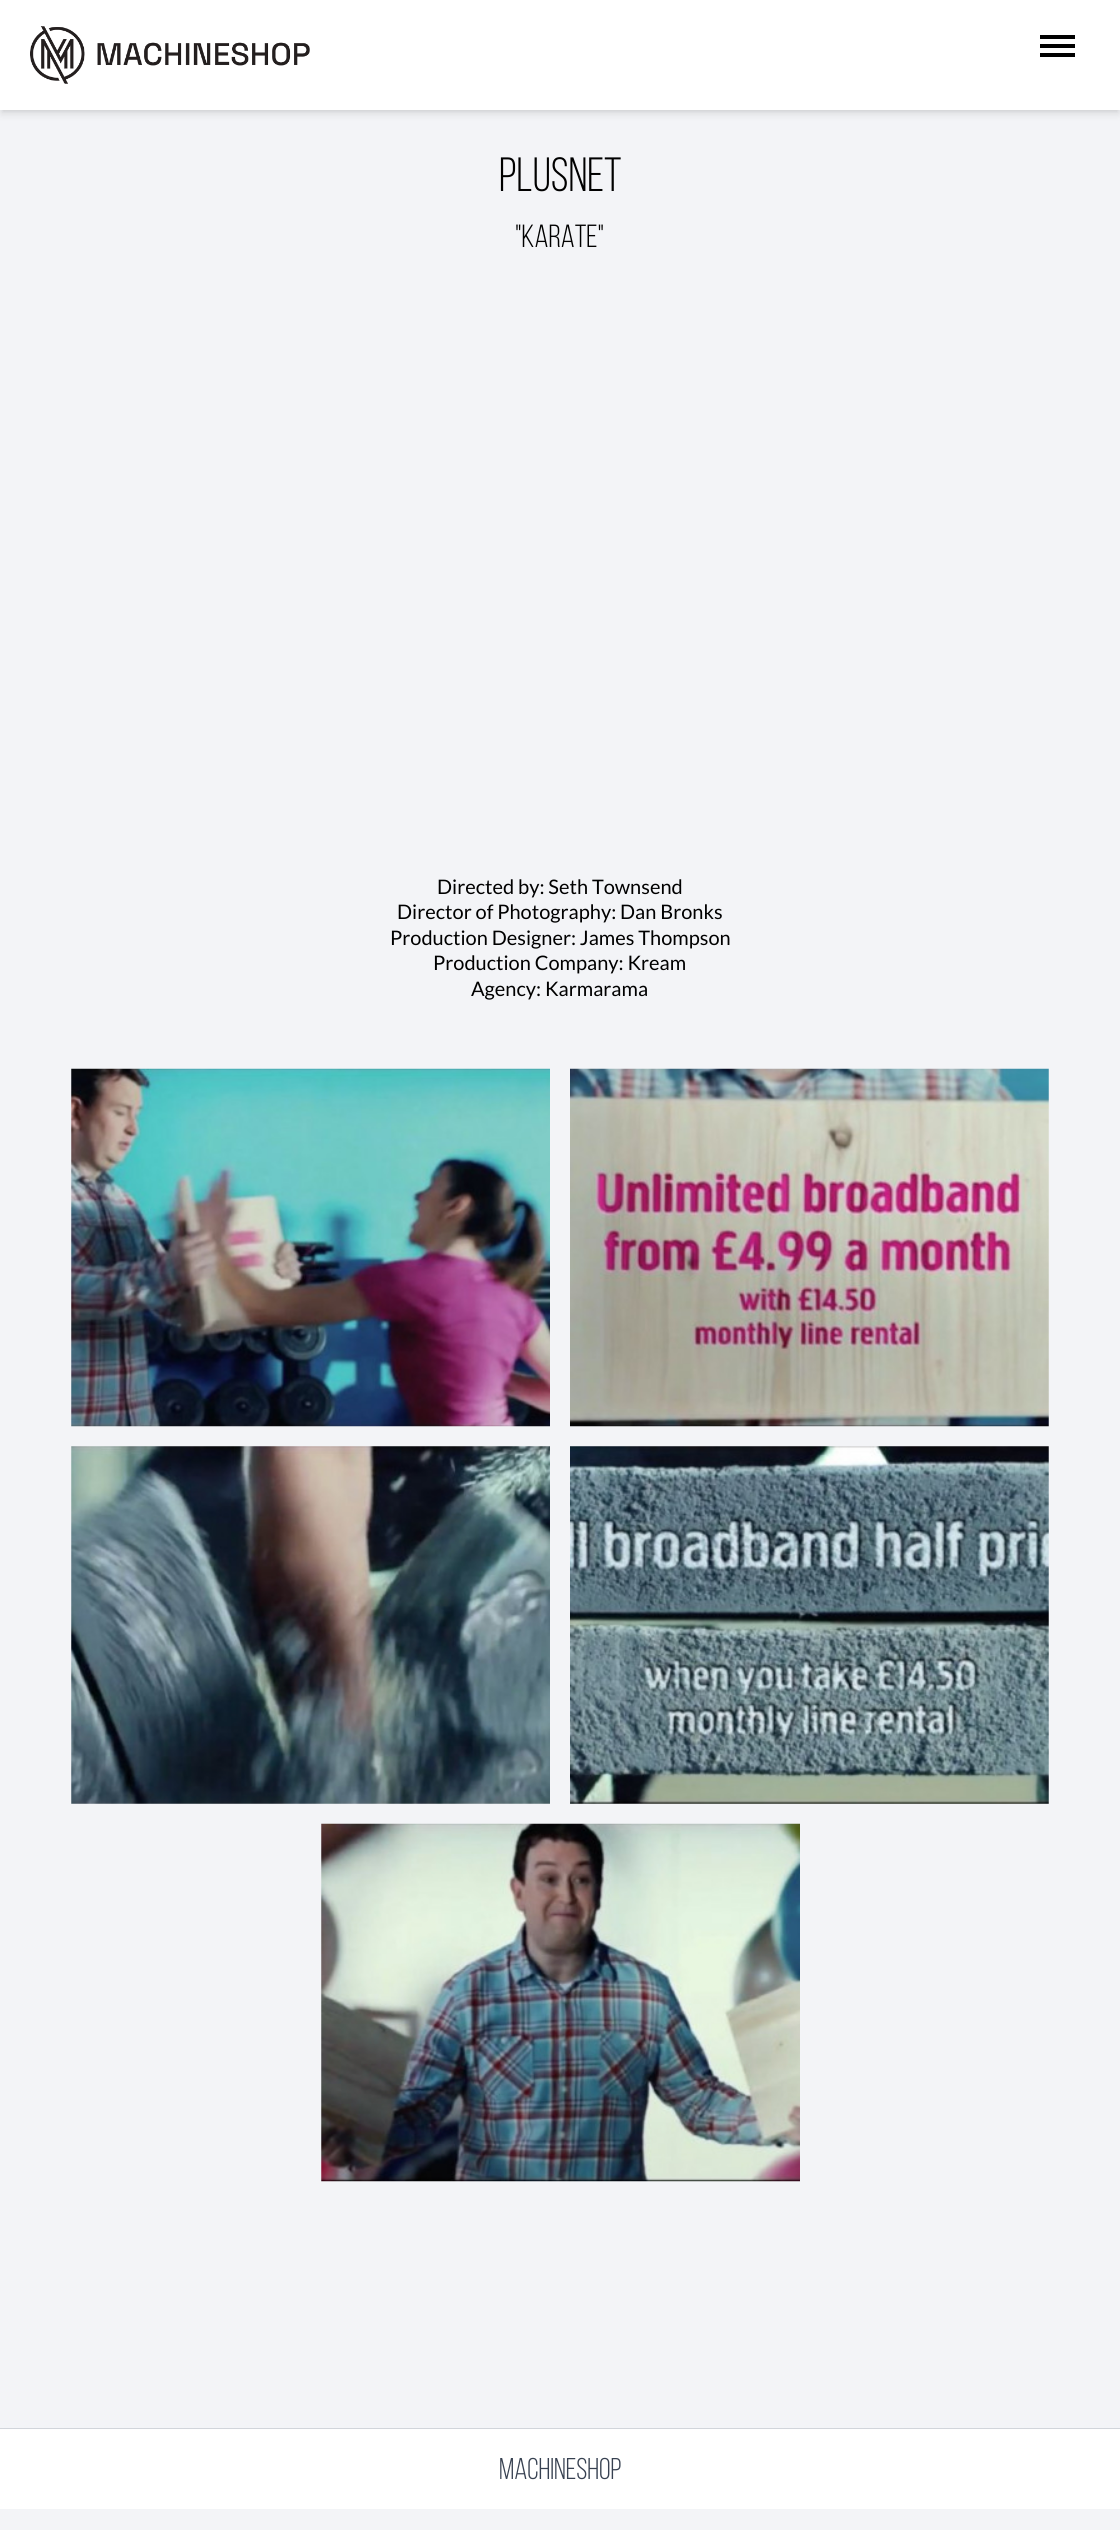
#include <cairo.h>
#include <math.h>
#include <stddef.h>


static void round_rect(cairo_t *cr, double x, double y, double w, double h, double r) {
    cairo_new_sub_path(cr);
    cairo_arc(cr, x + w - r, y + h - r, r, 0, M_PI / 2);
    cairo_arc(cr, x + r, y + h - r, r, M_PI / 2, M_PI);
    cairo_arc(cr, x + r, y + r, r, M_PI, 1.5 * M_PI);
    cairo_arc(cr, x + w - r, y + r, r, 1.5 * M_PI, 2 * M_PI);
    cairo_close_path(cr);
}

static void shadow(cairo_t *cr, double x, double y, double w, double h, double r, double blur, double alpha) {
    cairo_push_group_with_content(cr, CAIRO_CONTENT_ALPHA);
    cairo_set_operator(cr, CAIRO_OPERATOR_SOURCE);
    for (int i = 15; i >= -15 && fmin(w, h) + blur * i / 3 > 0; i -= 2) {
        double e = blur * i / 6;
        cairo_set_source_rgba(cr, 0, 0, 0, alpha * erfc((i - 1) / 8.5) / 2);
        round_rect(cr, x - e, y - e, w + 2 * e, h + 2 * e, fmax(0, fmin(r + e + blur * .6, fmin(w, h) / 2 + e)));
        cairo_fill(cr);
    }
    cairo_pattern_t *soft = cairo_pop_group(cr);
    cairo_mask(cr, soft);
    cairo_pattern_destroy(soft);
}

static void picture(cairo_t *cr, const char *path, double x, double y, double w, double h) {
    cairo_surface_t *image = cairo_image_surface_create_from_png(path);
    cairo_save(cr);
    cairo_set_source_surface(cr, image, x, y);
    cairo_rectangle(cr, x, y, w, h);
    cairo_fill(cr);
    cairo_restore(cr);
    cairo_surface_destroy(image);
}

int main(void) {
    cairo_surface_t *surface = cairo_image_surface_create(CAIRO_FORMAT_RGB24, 1120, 2530);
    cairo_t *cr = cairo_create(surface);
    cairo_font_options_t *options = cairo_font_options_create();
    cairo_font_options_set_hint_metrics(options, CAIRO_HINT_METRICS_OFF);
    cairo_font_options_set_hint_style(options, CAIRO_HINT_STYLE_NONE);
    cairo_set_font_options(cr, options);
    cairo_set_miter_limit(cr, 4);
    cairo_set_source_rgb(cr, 0.953, 0.957, 0.965);
    cairo_paint(cr);
    cairo_set_source_rgb(cr, 0, 0, 0);
    shadow(cr, 3, 5, 1115, 105, 0, 2.5, 0.1);
    shadow(cr, 1, 6, 1118, 108, 0, 4, 0.1);
    cairo_set_source_rgb(cr, 1, 1, 1);
    cairo_rectangle(cr, 0, 0, 1120, 110);
    cairo_fill(cr);
    picture(cr, "img1.png", 30, 26, 280, 58);
    cairo_set_source_rgb(cr, 0, 0, 0);
    cairo_rectangle(cr, 1040, 35, 35, 4);
    cairo_fill(cr);
    cairo_rectangle(cr, 1040, 44, 35, 4);
    cairo_fill(cr);
    cairo_rectangle(cr, 1040, 53, 35, 4);
    cairo_fill(cr);
    cairo_select_font_face(cr, "Bebas Neue", CAIRO_FONT_SLANT_NORMAL, CAIRO_FONT_WEIGHT_NORMAL);
    cairo_set_font_size(cr, 48);
    cairo_move_to(cr, 499, 191);
    cairo_show_text(cr, "Plusnet");
    cairo_set_font_size(cr, 32);
    cairo_move_to(cr, 515, 247);
    cairo_show_text(cr, "\"Karate\"");
    cairo_select_font_face(cr, "Lato", CAIRO_FONT_SLANT_NORMAL, CAIRO_FONT_WEIGHT_NORMAL);
    cairo_set_font_size(cr, 20);
    cairo_move_to(cr, 437, 894);
    cairo_show_text(cr, "Directed by: Seth Townsend");
    cairo_move_to(cr, 397, 919);
    cairo_show_text(cr, "Director of Photography: Dan Bronks");
    cairo_move_to(cr, 390, 945);
    cairo_show_text(cr, "Production Designer: James Thompson");
    cairo_move_to(cr, 433, 970);
    cairo_show_text(cr, "Production Company: Kream");
    cairo_move_to(cr, 471, 996);
    cairo_show_text(cr, "Agency: Karmarama");
    picture(cr, "img2.png", 71, 1068, 479, 359);
    picture(cr, "img3.png", 570, 1068, 479, 359);
    picture(cr, "img4.png", 71, 1446, 479, 358);
    picture(cr, "img5.png", 570, 1446, 479, 358);
    picture(cr, "img6.png", 321, 1823, 479, 359);
    cairo_set_source_rgb(cr, 1, 1, 1);
    cairo_rectangle(cr, 0, 2429, 1120, 80);
    cairo_fill(cr);
    cairo_set_source_rgb(cr, 0.82, 0.835, 0.859);
    cairo_rectangle(cr, 0, 2428, 1120, 1);
    cairo_fill(cr);
    cairo_select_font_face(cr, "Bebas Neue", CAIRO_FONT_SLANT_NORMAL, CAIRO_FONT_WEIGHT_NORMAL);
    cairo_set_font_size(cr, 30);
    cairo_set_source_rgb(cr, 0.216, 0.255, 0.318);
    cairo_move_to(cr, 499, 2479);
    cairo_show_text(cr, "MACHINESHOP");
    cairo_surface_write_to_png(surface, "page.png");
    cairo_font_options_destroy(options);
    cairo_destroy(cr);
    cairo_surface_destroy(surface);
    return 0;
}
